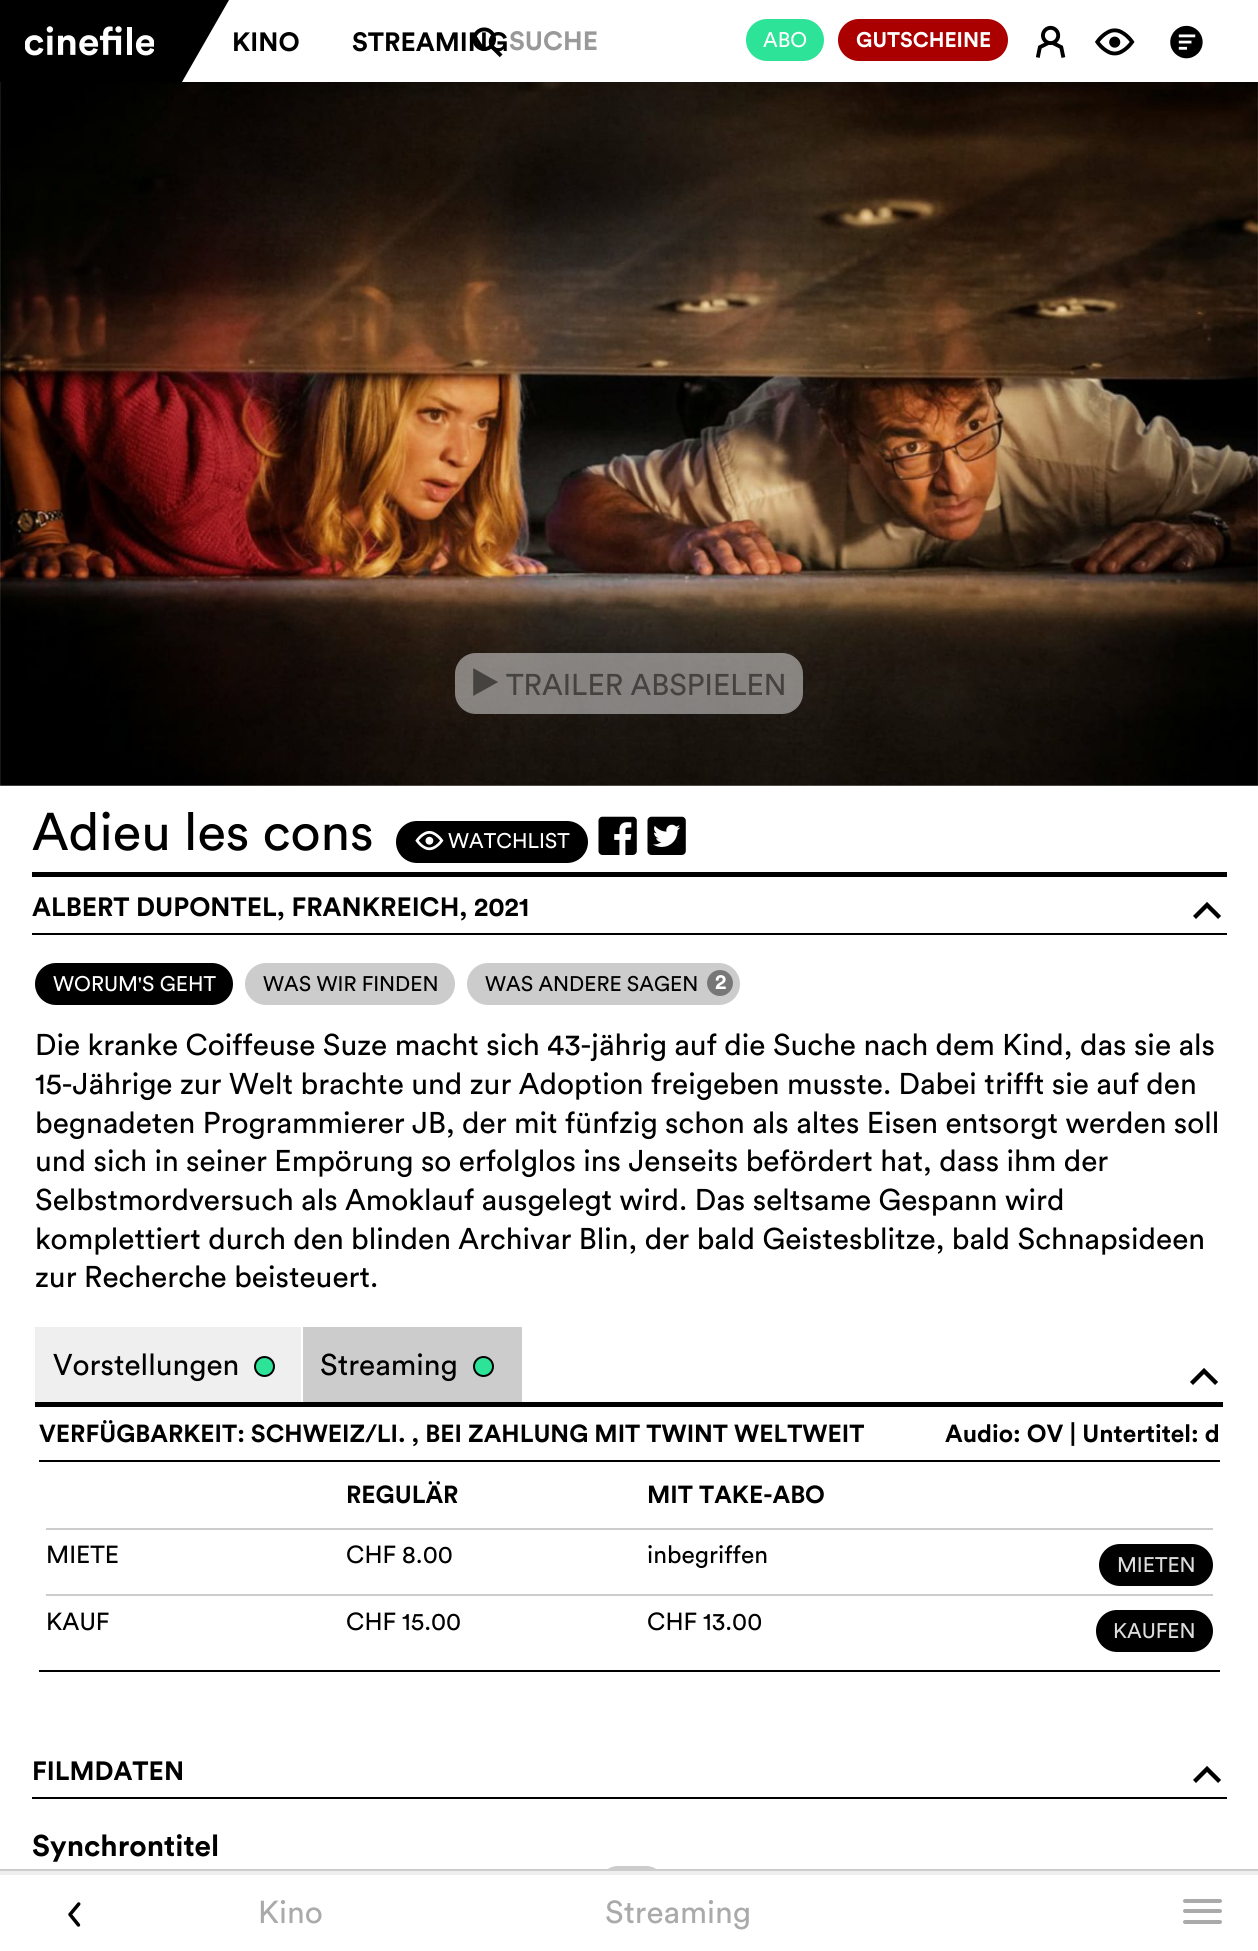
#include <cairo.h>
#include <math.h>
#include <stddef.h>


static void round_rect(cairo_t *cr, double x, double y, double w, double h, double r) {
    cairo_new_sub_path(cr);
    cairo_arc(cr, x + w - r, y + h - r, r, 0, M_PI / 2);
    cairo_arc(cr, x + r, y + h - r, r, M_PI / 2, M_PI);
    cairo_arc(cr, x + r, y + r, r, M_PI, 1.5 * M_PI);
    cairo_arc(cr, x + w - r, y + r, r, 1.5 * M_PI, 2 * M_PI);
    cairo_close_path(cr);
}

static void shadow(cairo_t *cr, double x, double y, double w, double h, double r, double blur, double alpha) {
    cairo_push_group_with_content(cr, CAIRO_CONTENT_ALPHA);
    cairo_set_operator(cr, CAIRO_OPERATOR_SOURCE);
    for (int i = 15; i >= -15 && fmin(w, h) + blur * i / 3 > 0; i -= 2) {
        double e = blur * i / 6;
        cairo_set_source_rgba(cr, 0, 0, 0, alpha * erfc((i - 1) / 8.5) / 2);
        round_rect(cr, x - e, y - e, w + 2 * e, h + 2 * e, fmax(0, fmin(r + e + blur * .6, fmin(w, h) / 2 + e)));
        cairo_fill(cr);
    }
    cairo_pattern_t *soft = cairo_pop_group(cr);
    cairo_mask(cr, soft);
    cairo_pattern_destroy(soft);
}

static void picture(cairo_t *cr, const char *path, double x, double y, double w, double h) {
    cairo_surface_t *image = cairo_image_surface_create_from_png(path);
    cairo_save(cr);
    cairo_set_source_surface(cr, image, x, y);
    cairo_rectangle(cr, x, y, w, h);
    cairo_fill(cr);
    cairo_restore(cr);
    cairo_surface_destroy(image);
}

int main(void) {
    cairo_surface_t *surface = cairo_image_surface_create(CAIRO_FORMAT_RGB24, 1258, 1951);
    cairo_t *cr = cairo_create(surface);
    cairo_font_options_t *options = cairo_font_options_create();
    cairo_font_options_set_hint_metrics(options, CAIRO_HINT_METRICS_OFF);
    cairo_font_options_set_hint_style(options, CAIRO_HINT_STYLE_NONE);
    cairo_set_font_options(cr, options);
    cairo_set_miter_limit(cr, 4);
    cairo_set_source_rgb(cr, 1, 1, 1);
    cairo_paint(cr);
    picture(cr, "img2.png", 0, 82, 1258, 704);
    cairo_set_source_rgb(cr, 0, 0, 0);
    shadow(cr, -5, -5, 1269, 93, 0, 9, 0.15);
    cairo_set_source_rgb(cr, 1, 1, 1);
    cairo_rectangle(cr, 182, 0, 1076, 82);
    cairo_fill(cr);
    cairo_set_source_rgb(cr, 0, 0, 0);
    cairo_rectangle(cr, 0, 0, 182, 82);
    cairo_fill(cr);
    picture(cr, "img1.png", 25, 26, 129, 30);
    cairo_new_path(cr);
    cairo_move_to(cr, 182, 0);
    cairo_line_to(cr, 229, 0);
    cairo_line_to(cr, 182, 82);
    cairo_close_path(cr);
    cairo_fill(cr);
    cairo_select_font_face(cr, "Circular", CAIRO_FONT_SLANT_NORMAL, CAIRO_FONT_WEIGHT_BOLD);
    cairo_set_font_size(cr, 26.25);
    cairo_move_to(cr, 232, 51);
    cairo_show_text(cr, "KINO");
    cairo_move_to(cr, 352, 51);
    cairo_show_text(cr, "STREAMING");
    cairo_set_source_rgb(cr, 0.176, 0.89, 0.592);
    round_rect(cr, 746, 19, 78, 42, 21);
    cairo_fill(cr);
    cairo_select_font_face(cr, "Circular", CAIRO_FONT_SLANT_NORMAL, CAIRO_FONT_WEIGHT_NORMAL);
    cairo_set_font_size(cr, 21);
    cairo_set_source_rgb(cr, 1, 1, 1);
    cairo_move_to(cr, 763, 47);
    cairo_show_text(cr, "ABO");
    cairo_set_source_rgb(cr, 0.667, 0, 0);
    round_rect(cr, 838, 19, 170, 42, 21);
    cairo_fill(cr);
    cairo_select_font_face(cr, "Circular", CAIRO_FONT_SLANT_NORMAL, CAIRO_FONT_WEIGHT_BOLD);
    cairo_set_source_rgb(cr, 1, 1, 1);
    cairo_move_to(cr, 856, 47);
    cairo_show_text(cr, "GUTSCHEINE");
    cairo_select_font_face(cr, "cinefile", CAIRO_FONT_SLANT_NORMAL, CAIRO_FONT_WEIGHT_NORMAL);
    cairo_set_font_size(cr, 37);
    cairo_set_source_rgb(cr, 0, 0, 0);
    cairo_move_to(cr, 1032, 58);
    cairo_show_text(cr, "E");
    cairo_move_to(cr, 1093, 58);
    cairo_show_text(cr, "F");
    cairo_move_to(cr, 1167, 58);
    cairo_show_text(cr, "D");
    cairo_set_font_size(cr, 31.5);
    cairo_move_to(cr, 471, 56);
    cairo_show_text(cr, "j");
    cairo_select_font_face(cr, "Circular", CAIRO_FONT_SLANT_NORMAL, CAIRO_FONT_WEIGHT_BOLD);
    cairo_set_font_size(cr, 26.25);
    cairo_set_source_rgb(cr, 0.6, 0.6, 0.6);
    cairo_move_to(cr, 509, 50);
    cairo_show_text(cr, "SUCHE");
    cairo_set_source_rgba(cr, 0.937, 0.937, 0.937, 0.5);
    round_rect(cr, 455, 653, 348, 61, 21);
    cairo_fill(cr);
    cairo_select_font_face(cr, "cinefile", CAIRO_FONT_SLANT_NORMAL, CAIRO_FONT_WEIGHT_NORMAL);
    cairo_set_font_size(cr, 29.75);
    cairo_set_source_rgb(cr, 0.271, 0.259, 0.251);
    cairo_move_to(cr, 472, 695);
    cairo_show_text(cr, "e");
    cairo_select_font_face(cr, "Circular", CAIRO_FONT_SLANT_NORMAL, CAIRO_FONT_WEIGHT_NORMAL);
    cairo_move_to(cr, 506, 695);
    cairo_show_text(cr, "TRAILER ABSPIELEN");
    cairo_set_source_rgb(cr, 0, 0, 0);
    cairo_rectangle(cr, 32, 872, 1195, 5);
    cairo_fill(cr);
    cairo_set_font_size(cr, 52.5);
    cairo_move_to(cr, 32, 850);
    cairo_show_text(cr, "Adieu les cons");
    round_rect(cr, 396, 821, 192, 42, 21);
    cairo_fill(cr);
    cairo_select_font_face(cr, "cinefile", CAIRO_FONT_SLANT_NORMAL, CAIRO_FONT_WEIGHT_NORMAL);
    cairo_set_font_size(cr, 26.25);
    cairo_set_source_rgb(cr, 1, 1, 1);
    cairo_move_to(cr, 414, 852);
    cairo_show_text(cr, "F");
    cairo_select_font_face(cr, "Circular", CAIRO_FONT_SLANT_NORMAL, CAIRO_FONT_WEIGHT_NORMAL);
    cairo_set_font_size(cr, 21);
    cairo_move_to(cr, 448, 848);
    cairo_show_text(cr, "WATCHLIST");
    picture(cr, "img3.png", 598, 816, 39, 39);
    picture(cr, "img4.png", 647, 816, 39, 39);
    cairo_set_source_rgb(cr, 0, 0, 0);
    cairo_rectangle(cr, 32, 933, 1195, 2);
    cairo_fill(cr);
    cairo_select_font_face(cr, "Circular", CAIRO_FONT_SLANT_NORMAL, CAIRO_FONT_WEIGHT_BOLD);
    cairo_set_font_size(cr, 26.25);
    cairo_move_to(cr, 32, 916);
    cairo_show_text(cr, "ALBERT DUPONTEL, FRANKREICH, 2021");
    cairo_select_font_face(cr, "cinefile", CAIRO_FONT_SLANT_NORMAL, CAIRO_FONT_WEIGHT_NORMAL);
    cairo_set_font_size(cr, 38);
    cairo_move_to(cr, 1188, 927);
    cairo_show_text(cr, "o");
    round_rect(cr, 35, 963, 198, 42, 21);
    cairo_fill(cr);
    cairo_select_font_face(cr, "Circular", CAIRO_FONT_SLANT_NORMAL, CAIRO_FONT_WEIGHT_NORMAL);
    cairo_set_font_size(cr, 21);
    cairo_set_source_rgb(cr, 1, 1, 1);
    cairo_move_to(cr, 53, 991);
    cairo_show_text(cr, "WORUM'S GEHT");
    cairo_set_source_rgb(cr, 0.8, 0.8, 0.8);
    round_rect(cr, 245, 963, 210, 42, 21);
    cairo_fill(cr);
    cairo_set_source_rgb(cr, 0, 0, 0);
    cairo_move_to(cr, 263, 991);
    cairo_show_text(cr, "WAS WIR FINDEN");
    cairo_set_source_rgb(cr, 0.8, 0.8, 0.8);
    round_rect(cr, 467, 963, 273, 42, 21);
    cairo_fill(cr);
    cairo_set_source_rgb(cr, 0, 0, 0);
    cairo_move_to(cr, 485, 991);
    cairo_show_text(cr, "WAS ANDERE SAGEN");
    cairo_set_source_rgb(cr, 0.467, 0.467, 0.467);
    cairo_new_path(cr);
    cairo_arc(cr, 720, 983, 13, 0, 2 * M_PI);
    cairo_fill(cr);
    cairo_select_font_face(cr, "Circular", CAIRO_FONT_SLANT_NORMAL, CAIRO_FONT_WEIGHT_BOLD);
    cairo_set_source_rgb(cr, 1, 1, 1);
    cairo_move_to(cr, 715, 989);
    cairo_show_text(cr, "2");
    cairo_select_font_face(cr, "Circular", CAIRO_FONT_SLANT_NORMAL, CAIRO_FONT_WEIGHT_NORMAL);
    cairo_set_font_size(cr, 29.75);
    cairo_set_source_rgb(cr, 0, 0, 0);
    cairo_move_to(cr, 35, 1055);
    cairo_show_text(cr, "Die kranke Coiffeuse Suze macht sich 43-jährig auf die Suche nach dem Kind, das sie als");
    cairo_move_to(cr, 35, 1094);
    cairo_show_text(cr, "15-Jährige zur Welt brachte und zur Adoption freigeben musste. Dabei trifft sie auf den");
    cairo_move_to(cr, 35, 1133);
    cairo_show_text(cr, "begnadeten Programmierer JB, der mit fünfzig schon als altes Eisen entsorgt werden soll");
    cairo_move_to(cr, 35, 1171);
    cairo_show_text(cr, "und sich in seiner Empörung so erfolglos ins Jenseits befördert hat, dass ihm der");
    cairo_move_to(cr, 35, 1210);
    cairo_show_text(cr, "Selbstmordversuch als Amoklauf ausgelegt wird. Das seltsame Gespann wird");
    cairo_move_to(cr, 35, 1249);
    cairo_show_text(cr, "komplettiert durch den blinden Archivar Blin, der bald Geistesblitze, bald Schnapsideen");
    cairo_move_to(cr, 35, 1287);
    cairo_show_text(cr, "zur Recherche beisteuert.");
    cairo_rectangle(cr, 35, 1402, 1188, 5);
    cairo_fill(cr);
    cairo_set_source_rgb(cr, 0.937, 0.937, 0.937);
    cairo_rectangle(cr, 34, 1327, 267, 75);
    cairo_fill(cr);
    cairo_set_source_rgb(cr, 1, 1, 1);
    cairo_new_path(cr);
    cairo_move_to(cr, 33, 1402);
    cairo_line_to(cr, 33, 1326);
    cairo_line_to(cr, 35, 1328);
    cairo_line_to(cr, 35, 1402);
    cairo_close_path(cr);
    cairo_fill(cr);
    cairo_set_source_rgb(cr, 0, 0, 0);
    cairo_move_to(cr, 53, 1375);
    cairo_show_text(cr, "Vorstellungen");
    cairo_set_source_rgb(cr, 0.176, 0.89, 0.592);
    cairo_new_path(cr);
    cairo_arc(cr, 264.5, 1366.5, 9.5, 0, 2 * M_PI);
    cairo_fill_preserve(cr);
    cairo_set_source_rgb(cr, 0, 0, 0);
    cairo_stroke(cr);
    cairo_set_source_rgb(cr, 0.8, 0.8, 0.8);
    cairo_rectangle(cr, 303, 1327, 219, 75);
    cairo_fill(cr);
    cairo_set_source_rgb(cr, 0, 0, 0);
    cairo_move_to(cr, 320, 1375);
    cairo_show_text(cr, "Streaming");
    cairo_set_source_rgb(cr, 0.176, 0.89, 0.592);
    cairo_new_path(cr);
    cairo_arc(cr, 483.5, 1366.5, 9.5, 0, 2 * M_PI);
    cairo_fill_preserve(cr);
    cairo_set_source_rgb(cr, 0, 0, 0);
    cairo_stroke(cr);
    cairo_select_font_face(cr, "cinefile", CAIRO_FONT_SLANT_NORMAL, CAIRO_FONT_WEIGHT_NORMAL);
    cairo_set_font_size(cr, 38);
    cairo_move_to(cr, 1185, 1393);
    cairo_show_text(cr, "o");
    cairo_rectangle(cr, 39, 1460, 1181, 2);
    cairo_fill(cr);
    cairo_select_font_face(cr, "Circular", CAIRO_FONT_SLANT_NORMAL, CAIRO_FONT_WEIGHT_BOLD);
    cairo_set_font_size(cr, 24.5);
    cairo_move_to(cr, 39, 1442);
    cairo_show_text(cr, "VERFÜGBARKEIT: SCHWEIZ/LI. , BEI ZAHLUNG MIT TWINT WELTWEIT");
    cairo_move_to(cr, 945, 1442);
    cairo_show_text(cr, "Audio: OV | Untertitel: d");
    cairo_rectangle(cr, 39, 1670, 1181, 2);
    cairo_fill(cr);
    cairo_move_to(cr, 346, 1503);
    cairo_show_text(cr, "REGULÄR");
    cairo_move_to(cr, 647, 1503);
    cairo_show_text(cr, "MIT TAKE-ABO");
    cairo_set_source_rgb(cr, 0.8, 0.8, 0.8);
    cairo_rectangle(cr, 46, 1528, 1167, 2);
    cairo_fill(cr);
    cairo_select_font_face(cr, "Circular", CAIRO_FONT_SLANT_NORMAL, CAIRO_FONT_WEIGHT_NORMAL);
    cairo_set_source_rgb(cr, 0, 0, 0);
    cairo_move_to(cr, 46, 1563);
    cairo_show_text(cr, "MIETE");
    cairo_move_to(cr, 346, 1563);
    cairo_show_text(cr, "CHF 8.00");
    cairo_move_to(cr, 647, 1563);
    cairo_show_text(cr, "inbegriffen");
    round_rect(cr, 1099, 1544, 114, 42, 21);
    cairo_fill(cr);
    cairo_set_font_size(cr, 21);
    cairo_set_source_rgb(cr, 0.867, 0.867, 0.867);
    cairo_move_to(cr, 1117, 1572);
    cairo_show_text(cr, "MIETEN");
    cairo_set_source_rgb(cr, 0.8, 0.8, 0.8);
    cairo_rectangle(cr, 46, 1594, 1167, 2);
    cairo_fill(cr);
    cairo_set_font_size(cr, 24.5);
    cairo_set_source_rgb(cr, 0, 0, 0);
    cairo_move_to(cr, 46, 1630);
    cairo_show_text(cr, "KAUF");
    cairo_move_to(cr, 346, 1630);
    cairo_show_text(cr, "CHF 15.00");
    cairo_move_to(cr, 647, 1630);
    cairo_show_text(cr, "CHF 13.00");
    round_rect(cr, 1096, 1610, 117, 42, 21);
    cairo_fill(cr);
    cairo_set_font_size(cr, 21);
    cairo_set_source_rgb(cr, 0.867, 0.867, 0.867);
    cairo_move_to(cr, 1113, 1638);
    cairo_show_text(cr, "KAUFEN");
    cairo_set_source_rgb(cr, 0, 0, 0);
    cairo_rectangle(cr, 32, 1797, 1195, 2);
    cairo_fill(cr);
    cairo_select_font_face(cr, "Circular", CAIRO_FONT_SLANT_NORMAL, CAIRO_FONT_WEIGHT_BOLD);
    cairo_set_font_size(cr, 26.25);
    cairo_move_to(cr, 32, 1780);
    cairo_show_text(cr, "FILMDATEN");
    cairo_select_font_face(cr, "cinefile", CAIRO_FONT_SLANT_NORMAL, CAIRO_FONT_WEIGHT_NORMAL);
    cairo_set_font_size(cr, 38);
    cairo_move_to(cr, 1188, 1791);
    cairo_show_text(cr, "o");
    cairo_select_font_face(cr, "Circular", CAIRO_FONT_SLANT_NORMAL, CAIRO_FONT_WEIGHT_BOLD);
    cairo_set_font_size(cr, 29.75);
    cairo_move_to(cr, 32, 1856);
    cairo_show_text(cr, "Synchrontitel");
    cairo_set_source_rgb(cr, 0.8, 0.8, 0.8);
    round_rect(cr, 599, 1866, 66, 38, 19);
    cairo_fill(cr);
    cairo_set_source_rgb(cr, 1, 1, 1);
    cairo_rectangle(cr, 599, 1875, 66, 29);
    cairo_fill(cr);
    cairo_set_source_rgb(cr, 0.8, 0.8, 0.8);
    cairo_rectangle(cr, 0, 1869, 1258, 2);
    cairo_fill(cr);
    cairo_set_source_rgb(cr, 0.933, 0.933, 0.933);
    cairo_rectangle(cr, 0, 1871, 1258, 4);
    cairo_fill(cr);
    picture(cr, "img5.png", 68, 1902, 13, 25);
    cairo_select_font_face(cr, "Circular", CAIRO_FONT_SLANT_NORMAL, CAIRO_FONT_WEIGHT_NORMAL);
    cairo_set_font_size(cr, 31.5);
    cairo_set_source_rgb(cr, 0.667, 0.667, 0.667);
    cairo_move_to(cr, 258, 1923);
    cairo_show_text(cr, "Kino");
    cairo_move_to(cr, 605, 1923);
    cairo_show_text(cr, "Streaming");
    round_rect(cr, 1183, 1899, 39, 4, 2);
    cairo_fill(cr);
    round_rect(cr, 1183, 1909, 39, 4, 2);
    cairo_fill(cr);
    round_rect(cr, 1183, 1920, 39, 4, 2);
    cairo_fill(cr);
    cairo_surface_write_to_png(surface, "page.png");
    cairo_font_options_destroy(options);
    cairo_destroy(cr);
    cairo_surface_destroy(surface);
    return 0;
}
